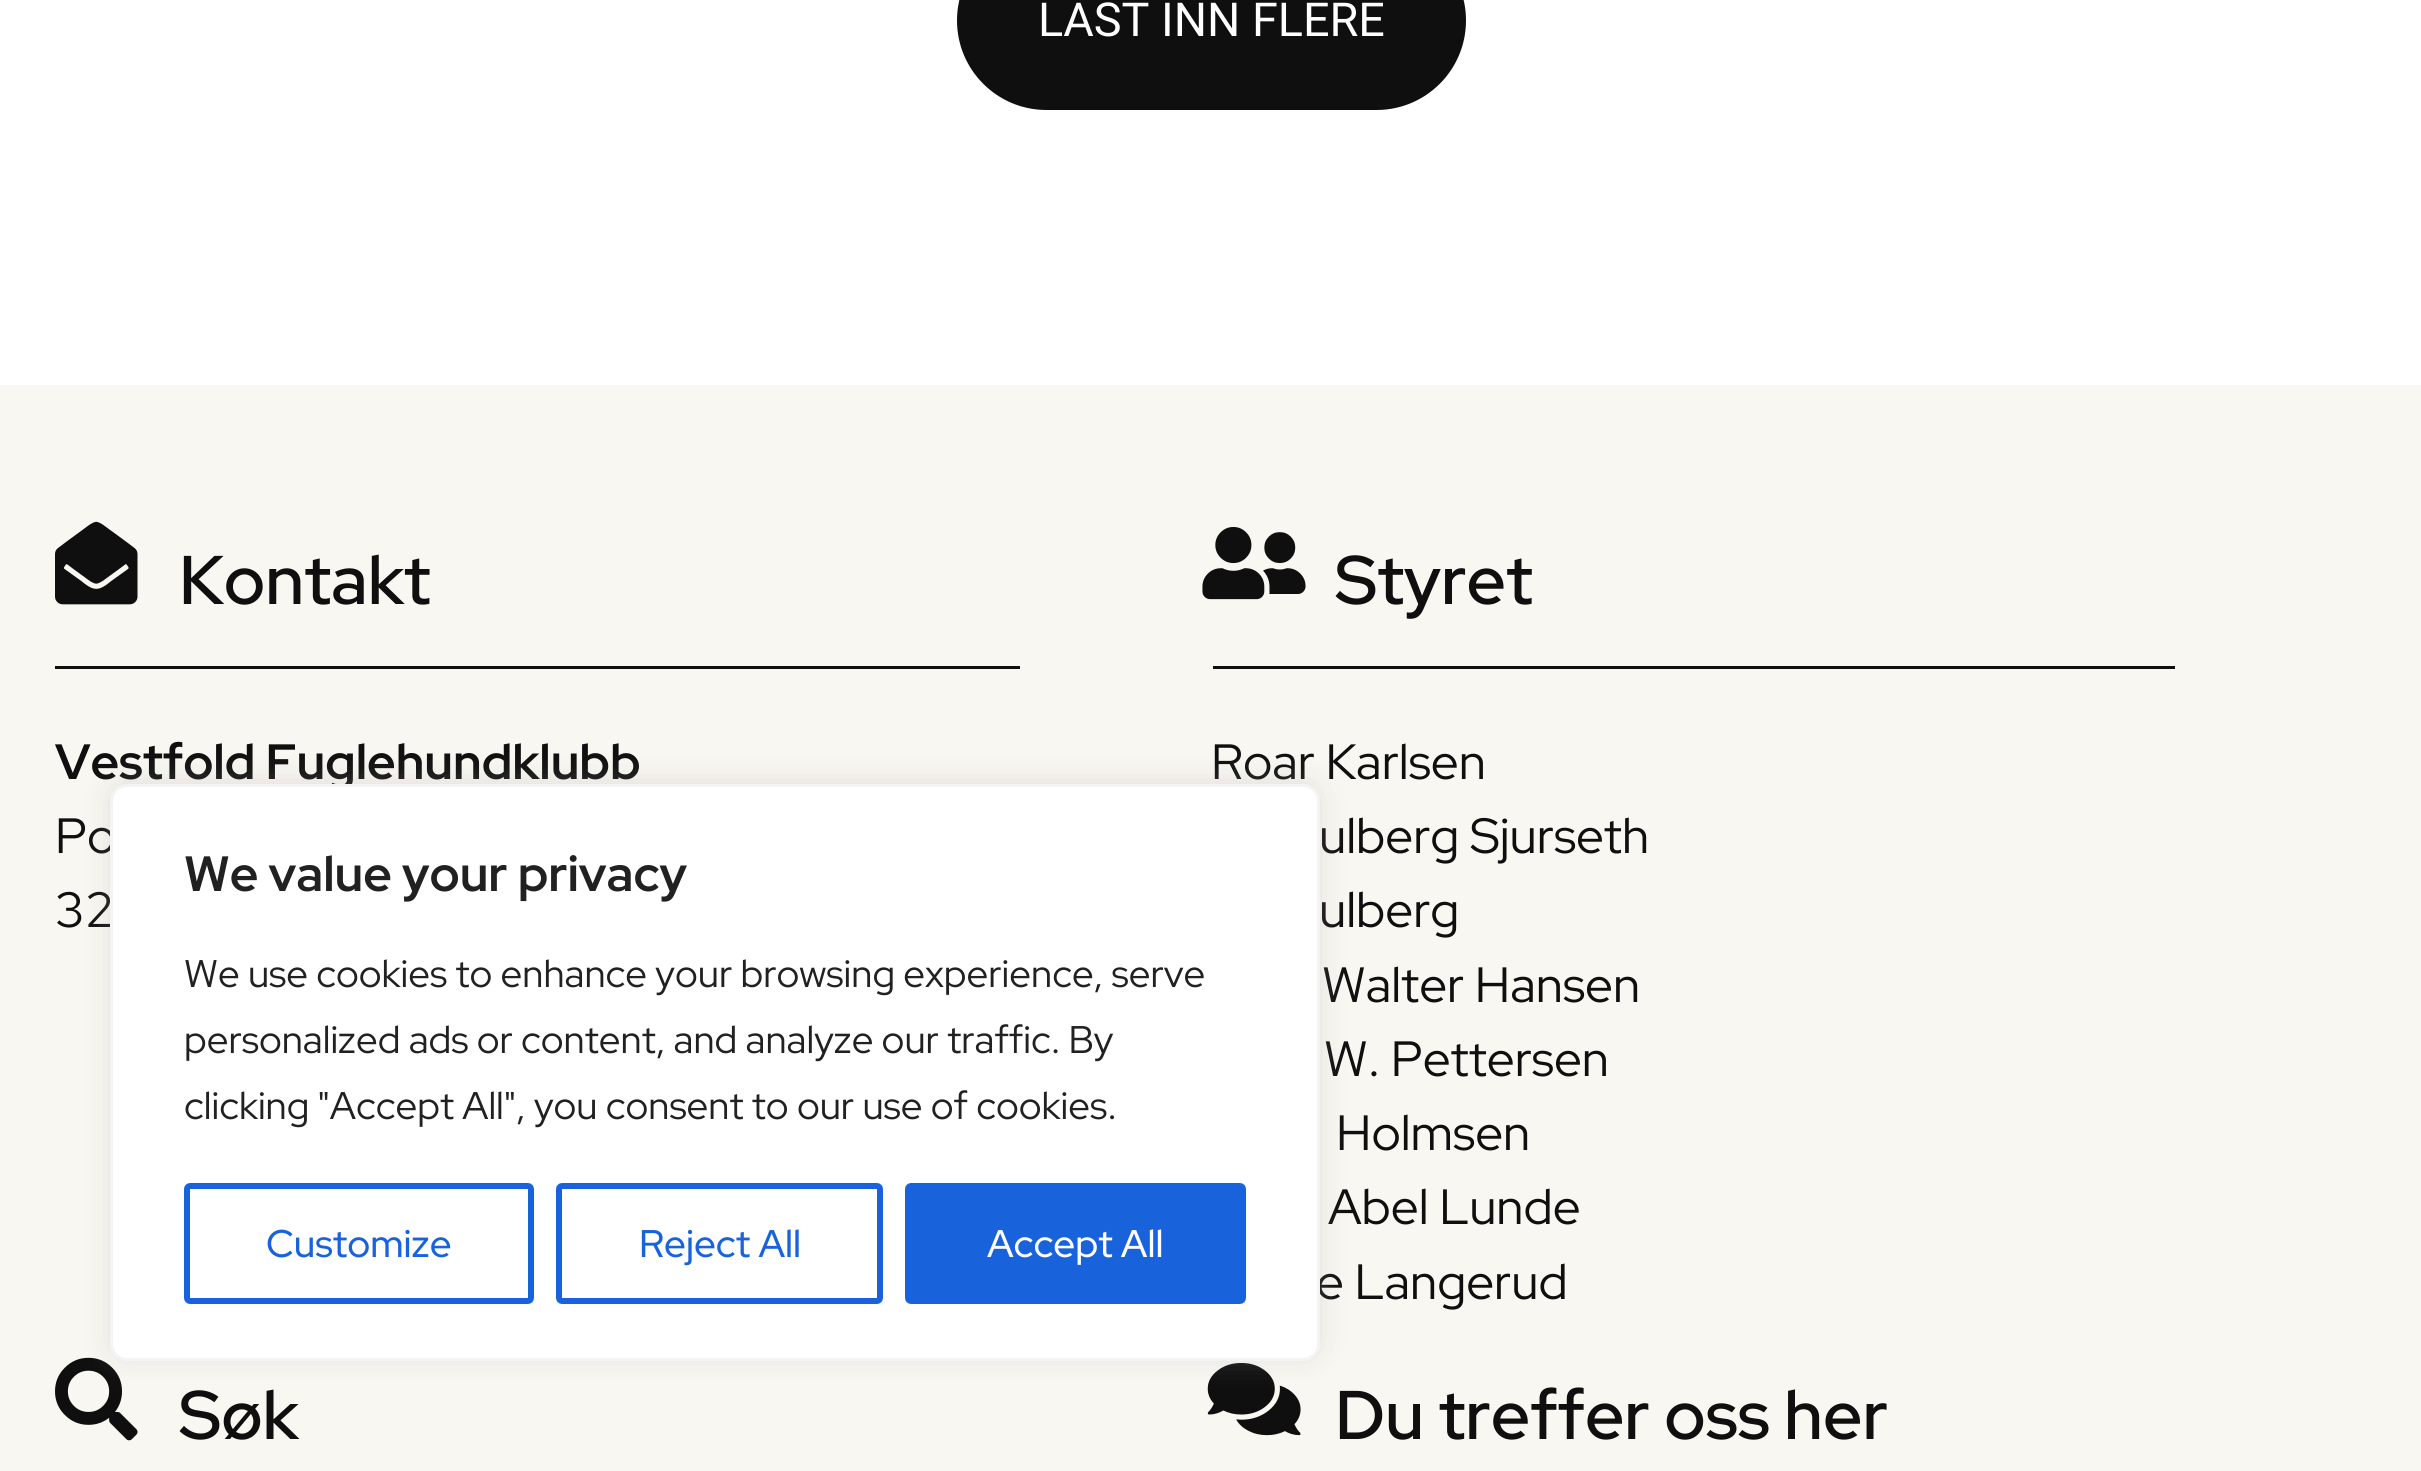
#include <cairo.h>
#include <math.h>
#include <stddef.h>


static void round_rect(cairo_t *cr, double x, double y, double w, double h, double r) {
    cairo_new_sub_path(cr);
    cairo_arc(cr, x + w - r, y + h - r, r, 0, M_PI / 2);
    cairo_arc(cr, x + r, y + h - r, r, M_PI / 2, M_PI);
    cairo_arc(cr, x + r, y + r, r, M_PI, 1.5 * M_PI);
    cairo_arc(cr, x + w - r, y + r, r, 1.5 * M_PI, 2 * M_PI);
    cairo_close_path(cr);
}

static void shadow(cairo_t *cr, double x, double y, double w, double h, double r, double blur, double alpha) {
    cairo_push_group_with_content(cr, CAIRO_CONTENT_ALPHA);
    cairo_set_operator(cr, CAIRO_OPERATOR_SOURCE);
    for (int i = 15; i >= -15 && fmin(w, h) + blur * i / 3 > 0; i -= 2) {
        double e = blur * i / 6;
        cairo_set_source_rgba(cr, 0, 0, 0, alpha * erfc((i - 1) / 8.5) / 2);
        round_rect(cr, x - e, y - e, w + 2 * e, h + 2 * e, fmax(0, fmin(r + e + blur * .6, fmin(w, h) / 2 + e)));
        cairo_fill(cr);
    }
    cairo_pattern_t *soft = cairo_pop_group(cr);
    cairo_mask(cr, soft);
    cairo_pattern_destroy(soft);
}

static void picture(cairo_t *cr, const char *path, double x, double y, double w, double h) {
    cairo_surface_t *image = cairo_image_surface_create_from_png(path);
    cairo_save(cr);
    cairo_set_source_surface(cr, image, x, y);
    cairo_rectangle(cr, x, y, w, h);
    cairo_fill(cr);
    cairo_restore(cr);
    cairo_surface_destroy(image);
}

int main(void) {
    cairo_surface_t *surface = cairo_image_surface_create(CAIRO_FORMAT_RGB24, 2421, 1471);
    cairo_t *cr = cairo_create(surface);
    cairo_font_options_t *options = cairo_font_options_create();
    cairo_font_options_set_hint_metrics(options, CAIRO_HINT_METRICS_OFF);
    cairo_font_options_set_hint_style(options, CAIRO_HINT_STYLE_NONE);
    cairo_set_font_options(cr, options);
    cairo_set_miter_limit(cr, 4);
    cairo_set_source_rgb(cr, 1, 1, 1);
    cairo_paint(cr);
    cairo_set_source_rgb(cr, 0.059, 0.059, 0.059);
    round_rect(cr, 958.5, -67.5, 506, 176, 88);
    cairo_fill_preserve(cr);
    cairo_set_line_width(cr, 3);
    cairo_stroke(cr);
    cairo_select_font_face(cr, "Roboto", CAIRO_FONT_SLANT_NORMAL, CAIRO_FONT_WEIGHT_NORMAL);
    cairo_set_font_size(cr, 46.75);
    cairo_set_source_rgb(cr, 1, 1, 1);
    cairo_move_to(cr, 1038, 36);
    cairo_show_text(cr, "LAST INN FLERE");
    cairo_set_source_rgb(cr, 0.976, 0.965, 0.945);
    cairo_rectangle(cr, 0, 385, 2421, 1086);
    cairo_fill(cr);
    picture(cr, "img1.png", 55, 521, 83, 84);
    cairo_select_font_face(cr, "Red Hat Display SemiBold", CAIRO_FONT_SLANT_NORMAL, CAIRO_FONT_WEIGHT_NORMAL);
    cairo_set_font_size(cr, 68.75);
    cairo_set_source_rgb(cr, 0.059, 0.059, 0.059);
    cairo_move_to(cr, 179, 604);
    cairo_show_text(cr, "Kontakt");
    cairo_rectangle(cr, 55, 666, 965, 3);
    cairo_fill(cr);
    cairo_select_font_face(cr, "Red Hat Display", CAIRO_FONT_SLANT_NORMAL, CAIRO_FONT_WEIGHT_BOLD);
    cairo_set_font_size(cr, 49.5);
    cairo_move_to(cr, 55, 779);
    cairo_show_text(cr, "Vestfold Fuglehundklubb");
    cairo_select_font_face(cr, "Red Hat Display", CAIRO_FONT_SLANT_NORMAL, CAIRO_FONT_WEIGHT_NORMAL);
    cairo_move_to(cr, 55, 853);
    cairo_show_text(cr, "Po");
    cairo_move_to(cr, 55, 927);
    cairo_show_text(cr, "32");
    picture(cr, "img2.png", 1202, 527, 104, 73);
    cairo_select_font_face(cr, "Red Hat Display SemiBold", CAIRO_FONT_SLANT_NORMAL, CAIRO_FONT_WEIGHT_NORMAL);
    cairo_set_font_size(cr, 68.75);
    cairo_move_to(cr, 1335, 604);
    cairo_show_text(cr, "Styret");
    cairo_rectangle(cr, 1213, 666, 962, 3);
    cairo_fill(cr);
    cairo_select_font_face(cr, "Red Hat Display", CAIRO_FONT_SLANT_NORMAL, CAIRO_FONT_WEIGHT_NORMAL);
    cairo_set_font_size(cr, 49.5);
    cairo_move_to(cr, 1211, 779);
    cairo_show_text(cr, "Roar Karlsen");
    cairo_move_to(cr, 1319, 853);
    cairo_show_text(cr, "ulberg Sjurseth");
    cairo_move_to(cr, 1319, 927);
    cairo_show_text(cr, "ulberg");
    cairo_move_to(cr, 1322, 1002);
    cairo_show_text(cr, "Walter Hansen");
    cairo_move_to(cr, 1324, 1076);
    cairo_show_text(cr, "W. Pettersen");
    cairo_move_to(cr, 1336, 1150);
    cairo_show_text(cr, "Holmsen");
    cairo_move_to(cr, 1328, 1224);
    cairo_show_text(cr, "Abel Lunde");
    cairo_move_to(cr, 1316, 1299);
    cairo_show_text(cr, "e Langerud");
    picture(cr, "img3.png", 55, 1357, 83, 84);
    cairo_select_font_face(cr, "Red Hat Display SemiBold", CAIRO_FONT_SLANT_NORMAL, CAIRO_FONT_WEIGHT_NORMAL);
    cairo_set_font_size(cr, 68.75);
    cairo_move_to(cr, 179, 1439);
    cairo_show_text(cr, "Søk");
    picture(cr, "img4.png", 1207, 1363, 94, 73);
    cairo_move_to(cr, 1335, 1439);
    cairo_show_text(cr, "Du treffer oss her");
    cairo_set_source_rgb(cr, 0.675, 0.671, 0.671);
    shadow(cr, 110, 781, 1210, 578, 17, 14, 0.3);
    cairo_set_source_rgb(cr, 1, 1, 1);
    round_rect(cr, 111.5, 785.5, 1207, 574, 15.5);
    cairo_fill_preserve(cr);
    cairo_set_source_rgb(cr, 0.957, 0.957, 0.957);
    cairo_stroke(cr);
    cairo_select_font_face(cr, "Red Hat Display", CAIRO_FONT_SLANT_NORMAL, CAIRO_FONT_WEIGHT_BOLD);
    cairo_set_font_size(cr, 49.5);
    cairo_set_source_rgb(cr, 0.129, 0.129, 0.129);
    cairo_move_to(cr, 184, 891);
    cairo_show_text(cr, "We value your privacy");
    cairo_select_font_face(cr, "Red Hat Display", CAIRO_FONT_SLANT_NORMAL, CAIRO_FONT_WEIGHT_NORMAL);
    cairo_set_font_size(cr, 38.5);
    cairo_move_to(cr, 184, 987);
    cairo_show_text(cr, "We use cookies to enhance your browsing experience, serve");
    cairo_move_to(cr, 184, 1053);
    cairo_show_text(cr, "personalized ads or content, and analyze our traffic. By");
    cairo_move_to(cr, 184, 1119);
    cairo_show_text(cr, "clicking \"Accept All\", you consent to our use of cookies.");
    round_rect(cr, 187, 1186, 344, 115, 3);
    cairo_set_source_rgb(cr, 0.094, 0.388, 0.863);
    cairo_set_line_width(cr, 6);
    cairo_stroke(cr);
    cairo_select_font_face(cr, "Red Hat Display Medium", CAIRO_FONT_SLANT_NORMAL, CAIRO_FONT_WEIGHT_NORMAL);
    cairo_move_to(cr, 266, 1257);
    cairo_show_text(cr, "Customize");
    round_rect(cr, 559, 1186, 321, 115, 3);
    cairo_stroke(cr);
    cairo_move_to(cr, 639, 1257);
    cairo_show_text(cr, "Reject All");
    round_rect(cr, 908, 1186, 335, 115, 3);
    cairo_fill_preserve(cr);
    cairo_stroke(cr);
    cairo_set_source_rgb(cr, 1, 1, 1);
    cairo_move_to(cr, 987, 1257);
    cairo_show_text(cr, "Accept All");
    cairo_surface_write_to_png(surface, "page.png");
    cairo_font_options_destroy(options);
    cairo_destroy(cr);
    cairo_surface_destroy(surface);
    return 0;
}
